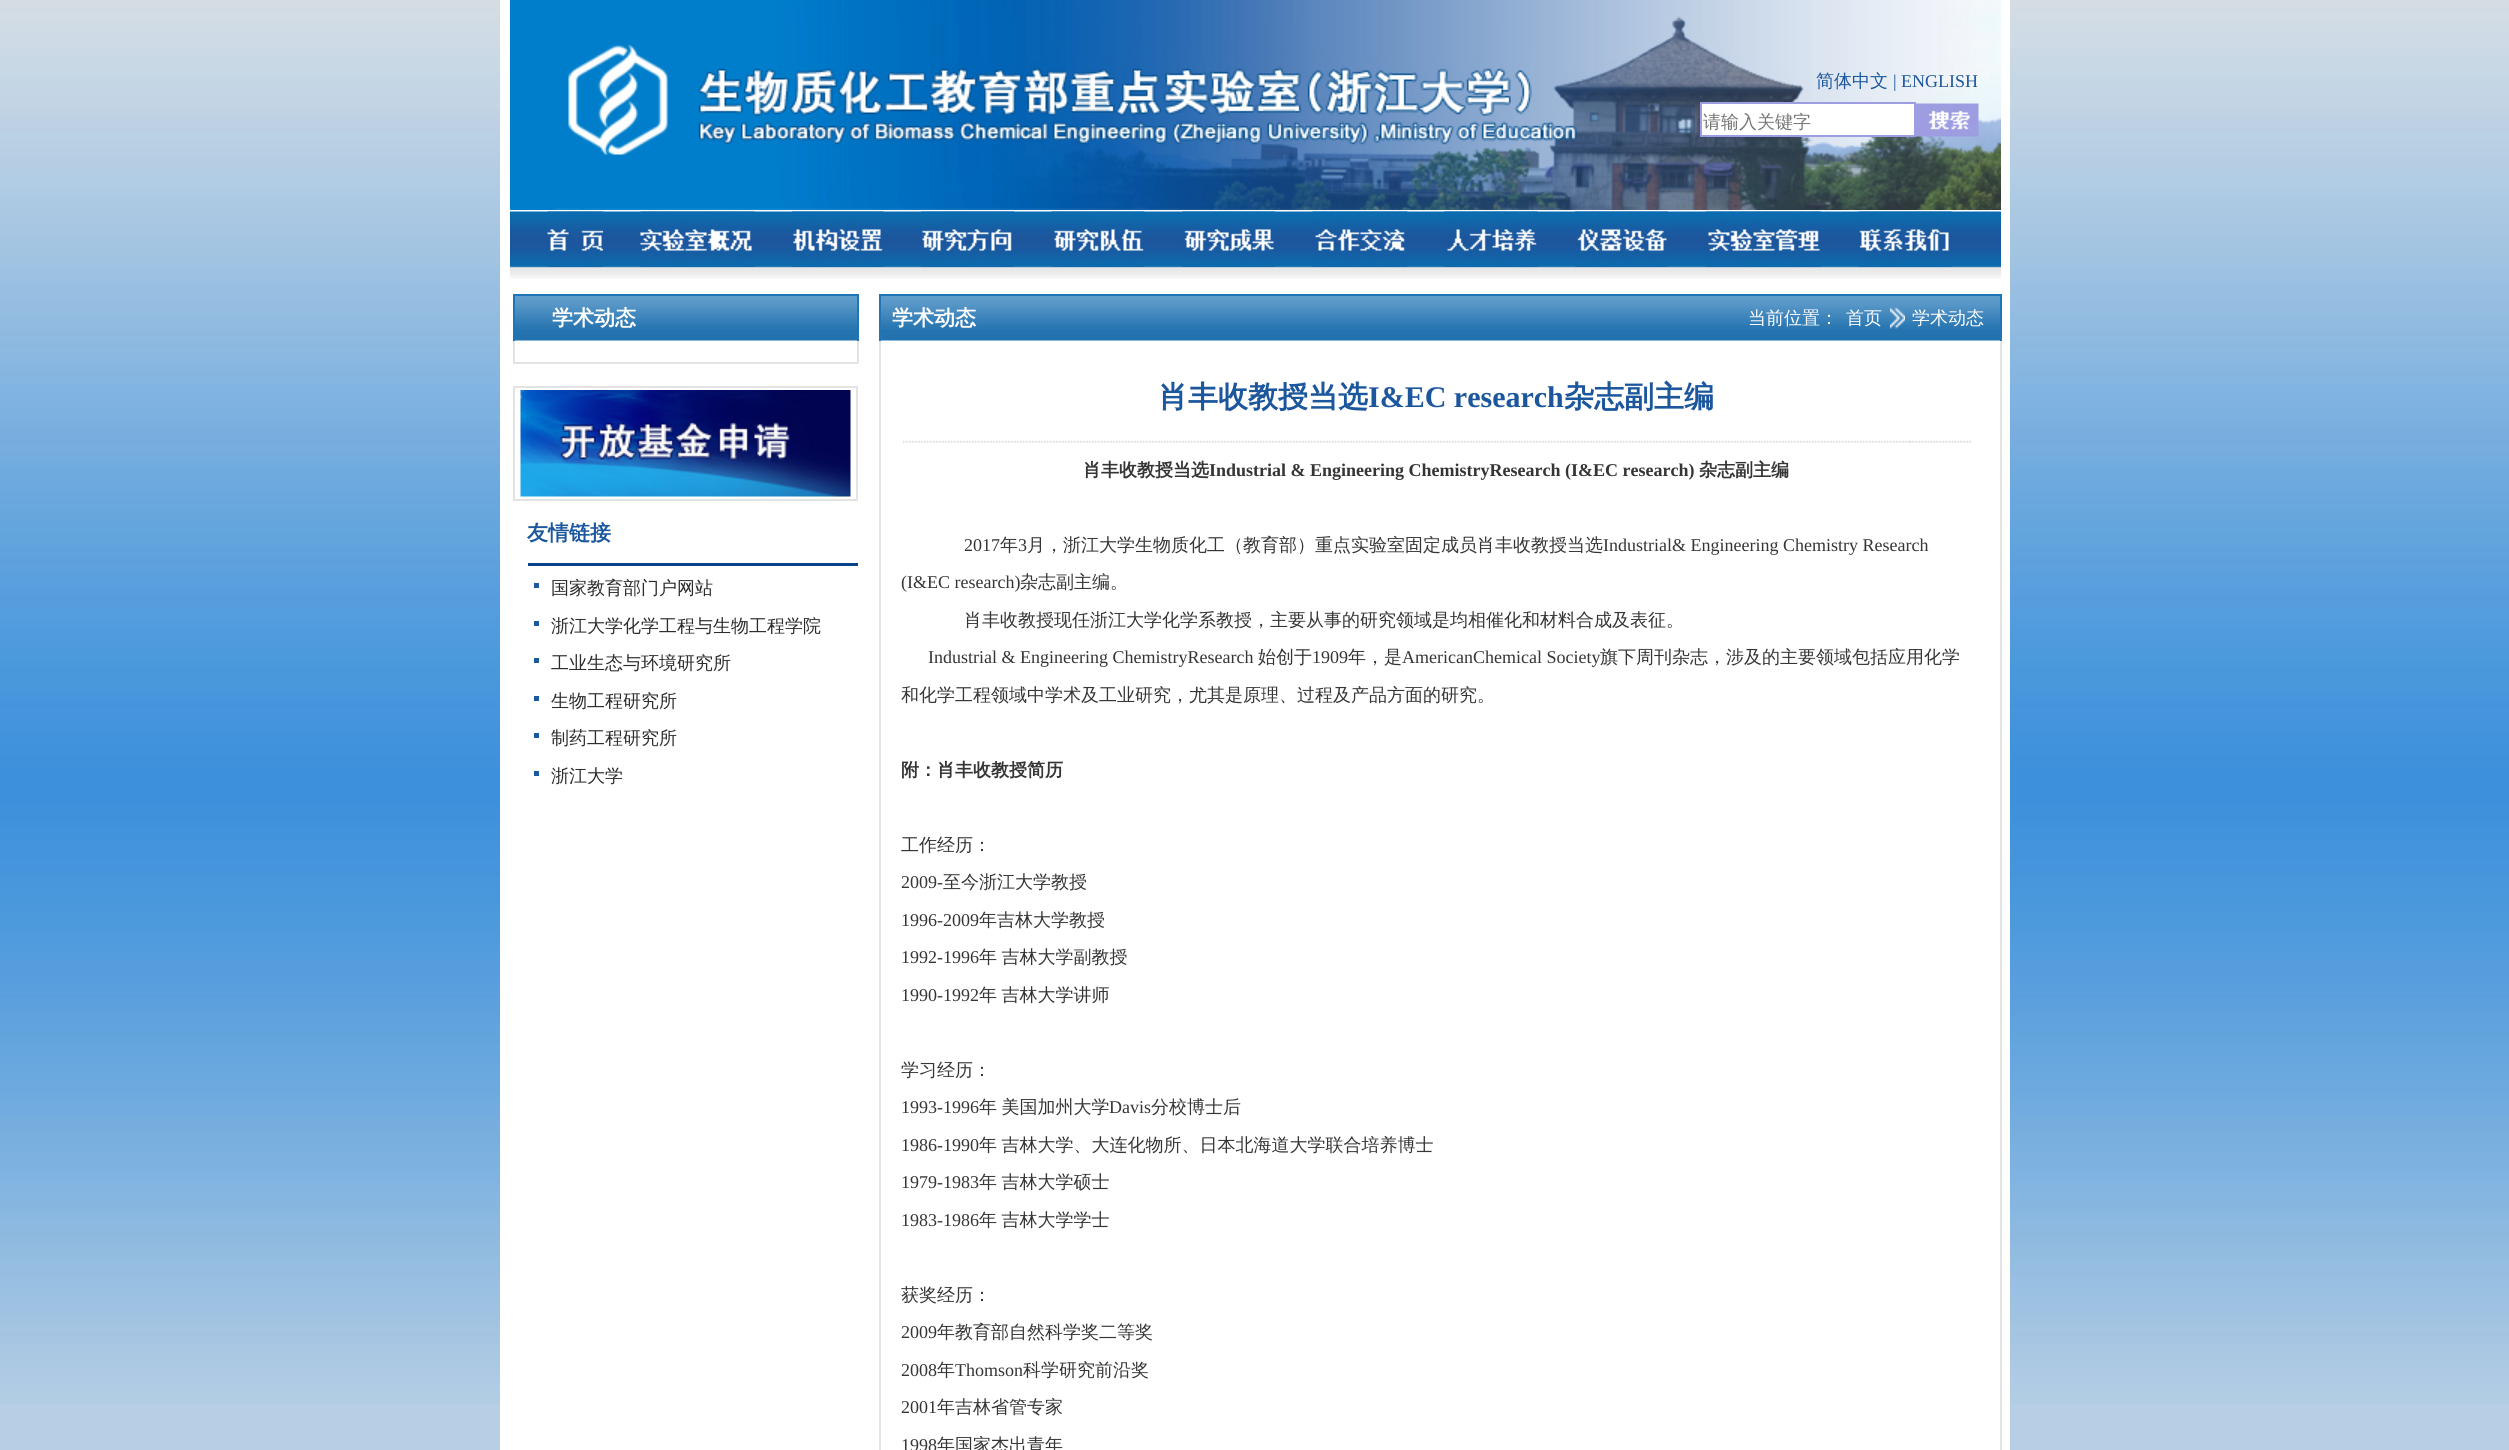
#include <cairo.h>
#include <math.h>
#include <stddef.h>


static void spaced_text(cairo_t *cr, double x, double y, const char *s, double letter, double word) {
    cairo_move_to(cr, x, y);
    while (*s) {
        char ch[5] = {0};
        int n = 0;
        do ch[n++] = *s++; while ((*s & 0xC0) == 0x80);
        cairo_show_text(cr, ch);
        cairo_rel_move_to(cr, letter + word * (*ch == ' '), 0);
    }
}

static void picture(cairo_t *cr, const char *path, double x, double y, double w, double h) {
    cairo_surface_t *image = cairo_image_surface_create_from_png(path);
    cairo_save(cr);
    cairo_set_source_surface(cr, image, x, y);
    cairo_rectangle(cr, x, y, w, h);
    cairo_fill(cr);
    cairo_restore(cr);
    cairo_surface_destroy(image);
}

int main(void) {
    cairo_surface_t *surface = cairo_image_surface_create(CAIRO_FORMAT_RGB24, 2509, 1450);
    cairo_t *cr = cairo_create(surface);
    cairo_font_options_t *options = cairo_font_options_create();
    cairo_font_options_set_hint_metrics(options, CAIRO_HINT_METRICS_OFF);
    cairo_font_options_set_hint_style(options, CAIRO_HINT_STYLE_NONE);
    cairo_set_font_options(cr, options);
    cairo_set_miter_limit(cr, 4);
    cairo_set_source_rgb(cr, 0.714, 0.812, 0.898);
    cairo_paint(cr);
    picture(cr, "img1.png", 0, 0, 2509, 1404);
    cairo_set_source_rgb(cr, 1, 1, 1);
    cairo_rectangle(cr, 500, 0, 1510, 1450);
    cairo_fill(cr);
    picture(cr, "img2.png", 510, 0, 1491, 210);
    cairo_select_font_face(cr, "WenQuanYi Zen Hei Medium", CAIRO_FONT_SLANT_NORMAL, CAIRO_FONT_WEIGHT_NORMAL);
    cairo_set_font_size(cr, 18);
    cairo_set_source_rgb(cr, 0.11, 0.341, 0.616);
    cairo_move_to(cr, 1816, 87);
    cairo_show_text(cr, "简体中文");
    cairo_select_font_face(cr, "Liberation Serif", CAIRO_FONT_SLANT_NORMAL, CAIRO_FONT_WEIGHT_NORMAL);
    cairo_move_to(cr, 1893, 87);
    cairo_show_text(cr, "| ENGLISH");
    cairo_set_source_rgb(cr, 1, 1, 1);
    cairo_rectangle(cr, 1701, 103, 214, 33);
    cairo_fill_preserve(cr);
    cairo_set_source_rgb(cr, 0.616, 0.616, 0.882);
    cairo_stroke(cr);
    cairo_select_font_face(cr, "WenQuanYi Zen Hei Medium", CAIRO_FONT_SLANT_NORMAL, CAIRO_FONT_WEIGHT_NORMAL);
    cairo_set_source_rgb(cr, 0.459, 0.459, 0.459);
    cairo_move_to(cr, 1703, 128);
    cairo_show_text(cr, "请输入关键字");
    picture(cr, "img3.png", 1916, 103, 63, 34);
    picture(cr, "img4.png", 510, 211, 1491, 68);
    picture(cr, "img5.png", 547, 211, 56, 56);
    picture(cr, "img6.png", 640, 211, 115, 56);
    picture(cr, "img7.png", 792, 211, 92, 56);
    picture(cr, "img8.png", 921, 211, 93, 56);
    picture(cr, "img9.png", 1051, 211, 94, 56);
    picture(cr, "img10.png", 1182, 211, 93, 56);
    picture(cr, "img11.png", 1312, 211, 95, 56);
    picture(cr, "img12.png", 1444, 211, 94, 56);
    picture(cr, "img13.png", 1575, 211, 93, 56);
    picture(cr, "img14.png", 1705, 211, 116, 56);
    picture(cr, "img15.png", 1858, 211, 94, 56);
    picture(cr, "img16.png", 515, 296, 342, 45);
    cairo_set_source_rgb(cr, 0.122, 0.459, 0.714);
    cairo_rectangle(cr, 513, 294, 345, 2);
    cairo_fill(cr);
    cairo_rectangle(cr, 857, 294, 2, 47);
    cairo_fill(cr);
    cairo_rectangle(cr, 513, 294, 2, 47);
    cairo_fill(cr);
    cairo_select_font_face(cr, "WenQuanYi Zen Hei", CAIRO_FONT_SLANT_NORMAL, CAIRO_FONT_WEIGHT_BOLD);
    cairo_set_font_size(cr, 21);
    cairo_set_source_rgb(cr, 1, 1, 1);
    cairo_move_to(cr, 552, 325);
    cairo_show_text(cr, "学术动态");
    cairo_set_source_rgb(cr, 0.89, 0.89, 0.89);
    cairo_rectangle(cr, 857, 341, 2, 22);
    cairo_fill(cr);
    cairo_rectangle(cr, 513, 362, 345, 2);
    cairo_fill(cr);
    cairo_rectangle(cr, 513, 341, 2, 22);
    cairo_fill(cr);
    cairo_rectangle(cr, 514, 387, 343, 113);
    cairo_stroke(cr);
    picture(cr, "img17.png", 520, 390, 331, 107);
    cairo_set_source_rgb(cr, 0.035, 0.263, 0.537);
    cairo_rectangle(cr, 528, 563, 330, 3);
    cairo_fill(cr);
    cairo_set_source_rgb(cr, 0.11, 0.341, 0.616);
    cairo_move_to(cr, 527, 540);
    cairo_show_text(cr, "友情链接");
    cairo_set_source_rgb(cr, 0.11, 0.345, 0.62);
    cairo_rectangle(cr, 534, 583, 5, 5);
    cairo_fill(cr);
    cairo_select_font_face(cr, "WenQuanYi Zen Hei Medium", CAIRO_FONT_SLANT_NORMAL, CAIRO_FONT_WEIGHT_NORMAL);
    cairo_set_font_size(cr, 18);
    cairo_set_source_rgb(cr, 0.173, 0.173, 0.173);
    cairo_move_to(cr, 551, 594);
    cairo_show_text(cr, "国家教育部门户网站");
    cairo_set_source_rgb(cr, 0.11, 0.345, 0.62);
    cairo_rectangle(cr, 534, 621, 5, 5);
    cairo_fill(cr);
    cairo_set_source_rgb(cr, 0.173, 0.173, 0.173);
    cairo_move_to(cr, 551, 632);
    cairo_show_text(cr, "浙江大学化学工程与生物工程学院");
    cairo_set_source_rgb(cr, 0.11, 0.345, 0.62);
    cairo_rectangle(cr, 534, 658, 5, 5);
    cairo_fill(cr);
    cairo_set_source_rgb(cr, 0.173, 0.173, 0.173);
    cairo_move_to(cr, 551, 669);
    cairo_show_text(cr, "工业生态与环境研究所");
    cairo_set_source_rgb(cr, 0.11, 0.345, 0.62);
    cairo_rectangle(cr, 534, 696, 5, 5);
    cairo_fill(cr);
    cairo_set_source_rgb(cr, 0.173, 0.173, 0.173);
    cairo_move_to(cr, 551, 707);
    cairo_show_text(cr, "生物工程研究所");
    cairo_set_source_rgb(cr, 0.11, 0.345, 0.62);
    cairo_rectangle(cr, 534, 733, 5, 5);
    cairo_fill(cr);
    cairo_set_source_rgb(cr, 0.173, 0.173, 0.173);
    cairo_move_to(cr, 551, 744);
    cairo_show_text(cr, "制药工程研究所");
    cairo_set_source_rgb(cr, 0.11, 0.345, 0.62);
    cairo_rectangle(cr, 534, 771, 5, 5);
    cairo_fill(cr);
    cairo_set_source_rgb(cr, 0.173, 0.173, 0.173);
    cairo_move_to(cr, 551, 782);
    cairo_show_text(cr, "浙江大学");
    picture(cr, "img18.png", 881, 296, 1119, 45);
    cairo_set_source_rgb(cr, 0.122, 0.459, 0.714);
    cairo_rectangle(cr, 879, 294, 1122, 2);
    cairo_fill(cr);
    cairo_rectangle(cr, 2000, 294, 2, 47);
    cairo_fill(cr);
    cairo_rectangle(cr, 879, 294, 2, 47);
    cairo_fill(cr);
    cairo_select_font_face(cr, "WenQuanYi Zen Hei", CAIRO_FONT_SLANT_NORMAL, CAIRO_FONT_WEIGHT_BOLD);
    cairo_set_font_size(cr, 21);
    cairo_set_source_rgb(cr, 1, 1, 1);
    cairo_move_to(cr, 892, 325);
    cairo_show_text(cr, "学术动态");
    cairo_select_font_face(cr, "WenQuanYi Zen Hei Medium", CAIRO_FONT_SLANT_NORMAL, CAIRO_FONT_WEIGHT_NORMAL);
    cairo_set_font_size(cr, 18);
    cairo_move_to(cr, 1748, 324);
    cairo_show_text(cr, "当前位置：");
    cairo_move_to(cr, 1846, 324);
    cairo_show_text(cr, "首页");
    picture(cr, "img19.png", 1890, 307, 15, 22);
    cairo_move_to(cr, 1912, 324);
    cairo_show_text(cr, "学术动态");
    cairo_set_source_rgb(cr, 0.89, 0.89, 0.89);
    cairo_rectangle(cr, 2000, 341, 2, 1109);
    cairo_fill(cr);
    cairo_rectangle(cr, 879, 341, 2, 1109);
    cairo_fill(cr);
    cairo_select_font_face(cr, "WenQuanYi Zen Hei", CAIRO_FONT_SLANT_NORMAL, CAIRO_FONT_WEIGHT_BOLD);
    cairo_set_font_size(cr, 30);
    cairo_set_source_rgb(cr, 0.11, 0.341, 0.616);
    cairo_move_to(cr, 1158, 407);
    cairo_show_text(cr, "肖丰收教授当选");
    cairo_select_font_face(cr, "Liberation Serif", CAIRO_FONT_SLANT_NORMAL, CAIRO_FONT_WEIGHT_BOLD);
    cairo_move_to(cr, 1368, 407);
    cairo_show_text(cr, "I&EC research");
    cairo_select_font_face(cr, "WenQuanYi Zen Hei", CAIRO_FONT_SLANT_NORMAL, CAIRO_FONT_WEIGHT_BOLD);
    cairo_move_to(cr, 1564, 407);
    cairo_show_text(cr, "杂志副主编");
    picture(cr, "img20.png", 902, 440, 1070, 3);
    cairo_set_font_size(cr, 18);
    cairo_set_source_rgb(cr, 0.208, 0.208, 0.208);
    cairo_move_to(cr, 1083, 476);
    cairo_show_text(cr, "肖丰收教授当选");
    cairo_select_font_face(cr, "Liberation Serif", CAIRO_FONT_SLANT_NORMAL, CAIRO_FONT_WEIGHT_BOLD);
    cairo_move_to(cr, 1209, 476);
    cairo_show_text(cr, "Industrial & Engineering ChemistryResearch (I&EC research)");
    cairo_select_font_face(cr, "WenQuanYi Zen Hei", CAIRO_FONT_SLANT_NORMAL, CAIRO_FONT_WEIGHT_BOLD);
    cairo_move_to(cr, 1699, 476);
    cairo_show_text(cr, "杂志副主编");
    cairo_select_font_face(cr, "Liberation Serif", CAIRO_FONT_SLANT_NORMAL, CAIRO_FONT_WEIGHT_NORMAL);
    cairo_move_to(cr, 964, 551);
    cairo_show_text(cr, "2017");
    cairo_select_font_face(cr, "WenQuanYi Zen Hei Medium", CAIRO_FONT_SLANT_NORMAL, CAIRO_FONT_WEIGHT_NORMAL);
    cairo_move_to(cr, 1000, 551);
    cairo_show_text(cr, "年");
    cairo_select_font_face(cr, "Liberation Serif", CAIRO_FONT_SLANT_NORMAL, CAIRO_FONT_WEIGHT_NORMAL);
    cairo_move_to(cr, 1018, 551);
    cairo_show_text(cr, "3");
    cairo_select_font_face(cr, "WenQuanYi Zen Hei Medium", CAIRO_FONT_SLANT_NORMAL, CAIRO_FONT_WEIGHT_NORMAL);
    cairo_move_to(cr, 1027, 551);
    cairo_show_text(cr, "月，浙江大学生物质化工（教育部）重点实验室固定成员肖丰收教授当选");
    cairo_select_font_face(cr, "Liberation Serif", CAIRO_FONT_SLANT_NORMAL, CAIRO_FONT_WEIGHT_NORMAL);
    cairo_move_to(cr, 1603, 551);
    cairo_show_text(cr, "Industrial& Engineering Chemistry Research");
    cairo_move_to(cr, 901, 588);
    cairo_show_text(cr, "(I&EC research)");
    cairo_select_font_face(cr, "WenQuanYi Zen Hei Medium", CAIRO_FONT_SLANT_NORMAL, CAIRO_FONT_WEIGHT_NORMAL);
    cairo_move_to(cr, 1020, 588);
    cairo_show_text(cr, "杂志副主编。");
    cairo_move_to(cr, 964, 626);
    cairo_show_text(cr, "肖丰收教授现任浙江大学化学系教授，主要从事的研究领域是均相催化和材料合成及表征。");
    cairo_select_font_face(cr, "Liberation Serif", CAIRO_FONT_SLANT_NORMAL, CAIRO_FONT_WEIGHT_NORMAL);
    cairo_move_to(cr, 928, 663);
    cairo_show_text(cr, "Industrial & Engineering ChemistryResearch");
    cairo_select_font_face(cr, "WenQuanYi Zen Hei Medium", CAIRO_FONT_SLANT_NORMAL, CAIRO_FONT_WEIGHT_NORMAL);
    cairo_move_to(cr, 1258, 663);
    cairo_show_text(cr, "始创于");
    cairo_select_font_face(cr, "Liberation Serif", CAIRO_FONT_SLANT_NORMAL, CAIRO_FONT_WEIGHT_NORMAL);
    cairo_move_to(cr, 1312, 663);
    cairo_show_text(cr, "1909");
    cairo_select_font_face(cr, "WenQuanYi Zen Hei Medium", CAIRO_FONT_SLANT_NORMAL, CAIRO_FONT_WEIGHT_NORMAL);
    cairo_move_to(cr, 1348, 663);
    cairo_show_text(cr, "年，是");
    cairo_select_font_face(cr, "Liberation Serif", CAIRO_FONT_SLANT_NORMAL, CAIRO_FONT_WEIGHT_NORMAL);
    cairo_move_to(cr, 1402, 663);
    cairo_show_text(cr, "AmericanChemical Society");
    cairo_select_font_face(cr, "WenQuanYi Zen Hei Medium", CAIRO_FONT_SLANT_NORMAL, CAIRO_FONT_WEIGHT_NORMAL);
    cairo_move_to(cr, 1600, 663);
    cairo_show_text(cr, "旗下周刊杂志，涉及的主要领域包括应用化学");
    cairo_move_to(cr, 901, 701);
    cairo_show_text(cr, "和化学工程领域中学术及工业研究，尤其是原理、过程及产品方面的研究。");
    cairo_select_font_face(cr, "WenQuanYi Zen Hei", CAIRO_FONT_SLANT_NORMAL, CAIRO_FONT_WEIGHT_BOLD);
    cairo_move_to(cr, 901, 776);
    cairo_show_text(cr, "附：肖丰收教授简历");
    cairo_select_font_face(cr, "WenQuanYi Zen Hei Medium", CAIRO_FONT_SLANT_NORMAL, CAIRO_FONT_WEIGHT_NORMAL);
    cairo_move_to(cr, 901, 851);
    cairo_show_text(cr, "工作经历：");
    cairo_select_font_face(cr, "Liberation Serif", CAIRO_FONT_SLANT_NORMAL, CAIRO_FONT_WEIGHT_NORMAL);
    cairo_move_to(cr, 901, 888);
    cairo_show_text(cr, "2009-");
    cairo_select_font_face(cr, "WenQuanYi Zen Hei Medium", CAIRO_FONT_SLANT_NORMAL, CAIRO_FONT_WEIGHT_NORMAL);
    cairo_move_to(cr, 943, 888);
    cairo_show_text(cr, "至今浙江大学教授");
    cairo_select_font_face(cr, "Liberation Serif", CAIRO_FONT_SLANT_NORMAL, CAIRO_FONT_WEIGHT_NORMAL);
    cairo_move_to(cr, 901, 926);
    cairo_show_text(cr, "1996-2009");
    cairo_select_font_face(cr, "WenQuanYi Zen Hei Medium", CAIRO_FONT_SLANT_NORMAL, CAIRO_FONT_WEIGHT_NORMAL);
    cairo_move_to(cr, 979, 926);
    cairo_show_text(cr, "年吉林大学教授");
    cairo_select_font_face(cr, "Liberation Serif", CAIRO_FONT_SLANT_NORMAL, CAIRO_FONT_WEIGHT_NORMAL);
    cairo_move_to(cr, 901, 963);
    cairo_show_text(cr, "1992-1996");
    cairo_select_font_face(cr, "WenQuanYi Zen Hei Medium", CAIRO_FONT_SLANT_NORMAL, CAIRO_FONT_WEIGHT_NORMAL);
    spaced_text(cr, 979, 963, "年 吉林大学副教授", 0, -1);
    cairo_select_font_face(cr, "Liberation Serif", CAIRO_FONT_SLANT_NORMAL, CAIRO_FONT_WEIGHT_NORMAL);
    cairo_move_to(cr, 901, 1001);
    cairo_show_text(cr, "1990-1992");
    cairo_select_font_face(cr, "WenQuanYi Zen Hei Medium", CAIRO_FONT_SLANT_NORMAL, CAIRO_FONT_WEIGHT_NORMAL);
    spaced_text(cr, 979, 1001, "年 吉林大学讲师", 0, -1);
    cairo_move_to(cr, 901, 1076);
    cairo_show_text(cr, "学习经历：");
    cairo_select_font_face(cr, "Liberation Serif", CAIRO_FONT_SLANT_NORMAL, CAIRO_FONT_WEIGHT_NORMAL);
    cairo_move_to(cr, 901, 1113);
    cairo_show_text(cr, "1993-1996");
    cairo_select_font_face(cr, "WenQuanYi Zen Hei Medium", CAIRO_FONT_SLANT_NORMAL, CAIRO_FONT_WEIGHT_NORMAL);
    spaced_text(cr, 979, 1113, "年 美国加州大学", 0, -1);
    cairo_select_font_face(cr, "Liberation Serif", CAIRO_FONT_SLANT_NORMAL, CAIRO_FONT_WEIGHT_NORMAL);
    cairo_move_to(cr, 1109, 1113);
    cairo_show_text(cr, "Davis");
    cairo_select_font_face(cr, "WenQuanYi Zen Hei Medium", CAIRO_FONT_SLANT_NORMAL, CAIRO_FONT_WEIGHT_NORMAL);
    cairo_move_to(cr, 1151, 1113);
    cairo_show_text(cr, "分校博士后");
    cairo_select_font_face(cr, "Liberation Serif", CAIRO_FONT_SLANT_NORMAL, CAIRO_FONT_WEIGHT_NORMAL);
    cairo_move_to(cr, 901, 1151);
    cairo_show_text(cr, "1986-1990");
    cairo_select_font_face(cr, "WenQuanYi Zen Hei Medium", CAIRO_FONT_SLANT_NORMAL, CAIRO_FONT_WEIGHT_NORMAL);
    spaced_text(cr, 979, 1151, "年 吉林大学、大连化物所、日本北海道大学联合培养博士", 0, -1);
    cairo_select_font_face(cr, "Liberation Serif", CAIRO_FONT_SLANT_NORMAL, CAIRO_FONT_WEIGHT_NORMAL);
    cairo_move_to(cr, 901, 1188);
    cairo_show_text(cr, "1979-1983");
    cairo_select_font_face(cr, "WenQuanYi Zen Hei Medium", CAIRO_FONT_SLANT_NORMAL, CAIRO_FONT_WEIGHT_NORMAL);
    spaced_text(cr, 979, 1188, "年 吉林大学硕士", 0, -1);
    cairo_select_font_face(cr, "Liberation Serif", CAIRO_FONT_SLANT_NORMAL, CAIRO_FONT_WEIGHT_NORMAL);
    cairo_move_to(cr, 901, 1226);
    cairo_show_text(cr, "1983-1986");
    cairo_select_font_face(cr, "WenQuanYi Zen Hei Medium", CAIRO_FONT_SLANT_NORMAL, CAIRO_FONT_WEIGHT_NORMAL);
    spaced_text(cr, 979, 1226, "年 吉林大学学士", 0, -1);
    cairo_move_to(cr, 901, 1301);
    cairo_show_text(cr, "获奖经历：");
    cairo_select_font_face(cr, "Liberation Serif", CAIRO_FONT_SLANT_NORMAL, CAIRO_FONT_WEIGHT_NORMAL);
    cairo_move_to(cr, 901, 1338);
    cairo_show_text(cr, "2009");
    cairo_select_font_face(cr, "WenQuanYi Zen Hei Medium", CAIRO_FONT_SLANT_NORMAL, CAIRO_FONT_WEIGHT_NORMAL);
    cairo_move_to(cr, 937, 1338);
    cairo_show_text(cr, "年教育部自然科学奖二等奖");
    cairo_select_font_face(cr, "Liberation Serif", CAIRO_FONT_SLANT_NORMAL, CAIRO_FONT_WEIGHT_NORMAL);
    cairo_move_to(cr, 901, 1376);
    cairo_show_text(cr, "2008");
    cairo_select_font_face(cr, "WenQuanYi Zen Hei Medium", CAIRO_FONT_SLANT_NORMAL, CAIRO_FONT_WEIGHT_NORMAL);
    cairo_move_to(cr, 937, 1376);
    cairo_show_text(cr, "年");
    cairo_select_font_face(cr, "Liberation Serif", CAIRO_FONT_SLANT_NORMAL, CAIRO_FONT_WEIGHT_NORMAL);
    cairo_move_to(cr, 955, 1376);
    cairo_show_text(cr, "Thomson");
    cairo_select_font_face(cr, "WenQuanYi Zen Hei Medium", CAIRO_FONT_SLANT_NORMAL, CAIRO_FONT_WEIGHT_NORMAL);
    cairo_move_to(cr, 1023, 1376);
    cairo_show_text(cr, "科学研究前沿奖");
    cairo_select_font_face(cr, "Liberation Serif", CAIRO_FONT_SLANT_NORMAL, CAIRO_FONT_WEIGHT_NORMAL);
    cairo_move_to(cr, 901, 1413);
    cairo_show_text(cr, "2001");
    cairo_select_font_face(cr, "WenQuanYi Zen Hei Medium", CAIRO_FONT_SLANT_NORMAL, CAIRO_FONT_WEIGHT_NORMAL);
    cairo_move_to(cr, 937, 1413);
    cairo_show_text(cr, "年吉林省管专家");
    cairo_select_font_face(cr, "Liberation Serif", CAIRO_FONT_SLANT_NORMAL, CAIRO_FONT_WEIGHT_NORMAL);
    cairo_move_to(cr, 901, 1451);
    cairo_show_text(cr, "1998");
    cairo_select_font_face(cr, "WenQuanYi Zen Hei Medium", CAIRO_FONT_SLANT_NORMAL, CAIRO_FONT_WEIGHT_NORMAL);
    cairo_move_to(cr, 937, 1451);
    cairo_show_text(cr, "年国家杰出青年");
    cairo_surface_write_to_png(surface, "page.png");
    cairo_font_options_destroy(options);
    cairo_destroy(cr);
    cairo_surface_destroy(surface);
    return 0;
}
